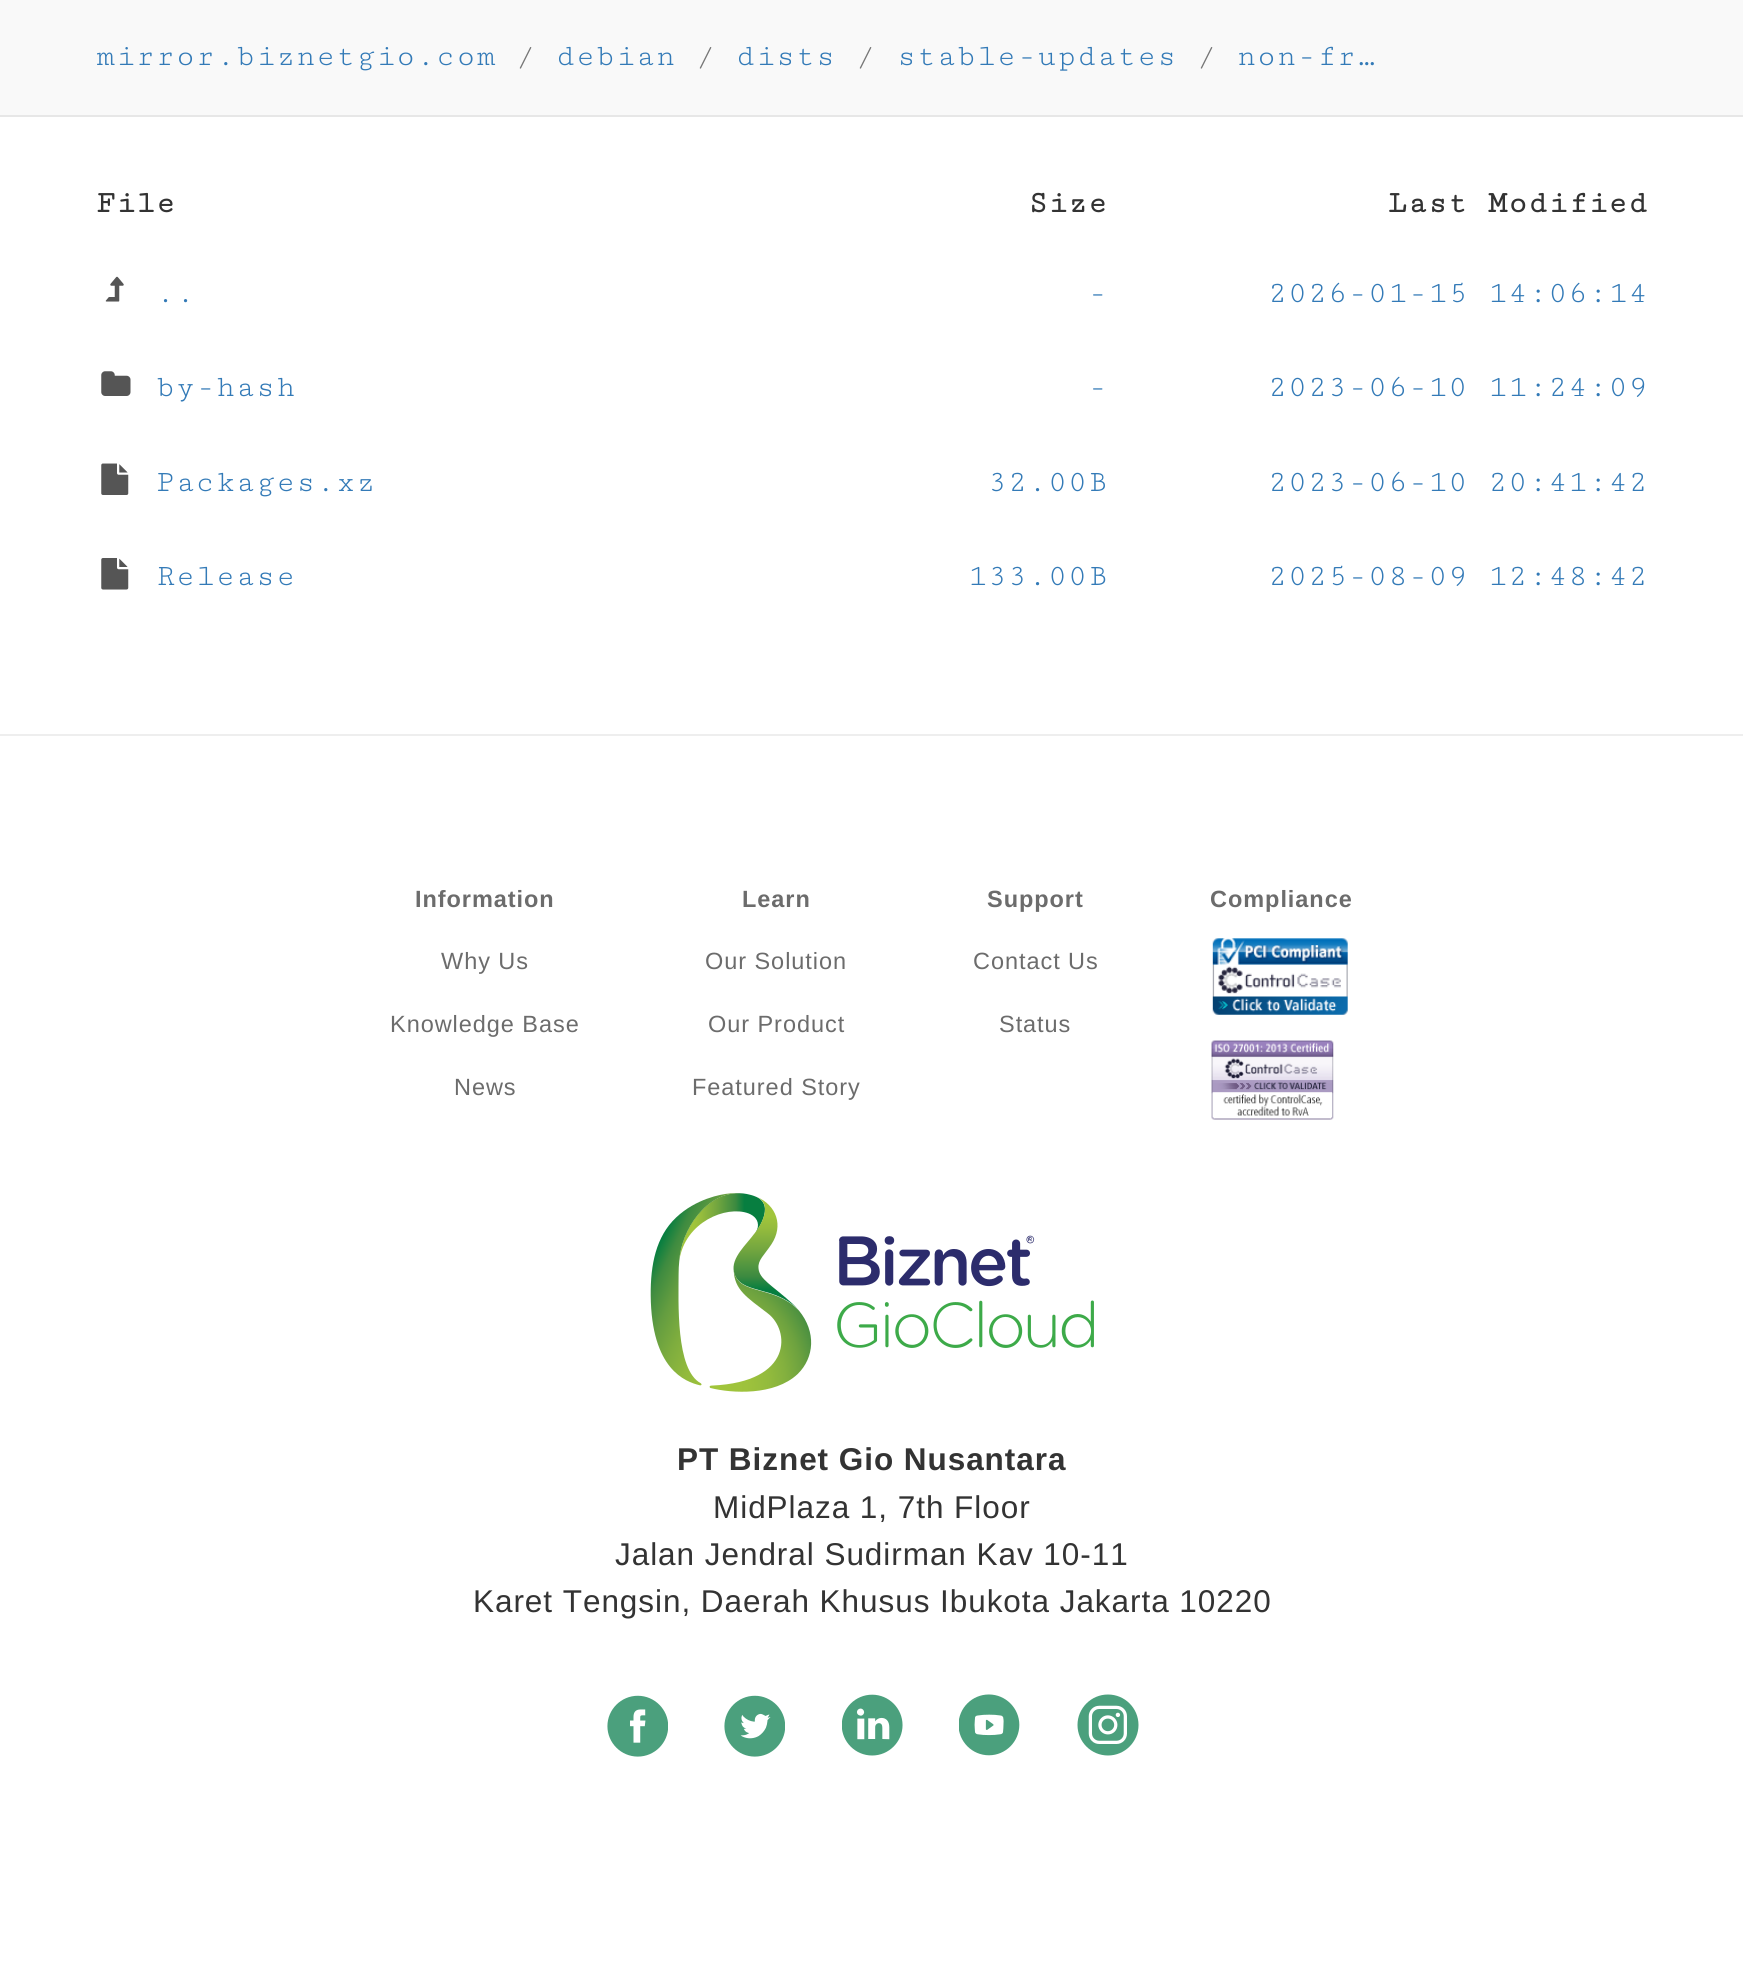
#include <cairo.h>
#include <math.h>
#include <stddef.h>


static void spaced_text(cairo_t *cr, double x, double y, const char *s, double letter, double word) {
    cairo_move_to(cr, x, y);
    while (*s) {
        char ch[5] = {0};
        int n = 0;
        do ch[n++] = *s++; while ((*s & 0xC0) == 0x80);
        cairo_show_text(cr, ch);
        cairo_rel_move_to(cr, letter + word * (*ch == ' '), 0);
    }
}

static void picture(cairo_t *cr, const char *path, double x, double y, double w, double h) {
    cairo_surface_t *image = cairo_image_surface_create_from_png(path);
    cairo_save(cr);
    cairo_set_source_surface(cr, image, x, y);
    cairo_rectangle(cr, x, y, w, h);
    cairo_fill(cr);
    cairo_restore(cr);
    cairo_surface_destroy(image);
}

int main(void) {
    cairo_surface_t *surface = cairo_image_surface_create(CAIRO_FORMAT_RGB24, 1743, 1983);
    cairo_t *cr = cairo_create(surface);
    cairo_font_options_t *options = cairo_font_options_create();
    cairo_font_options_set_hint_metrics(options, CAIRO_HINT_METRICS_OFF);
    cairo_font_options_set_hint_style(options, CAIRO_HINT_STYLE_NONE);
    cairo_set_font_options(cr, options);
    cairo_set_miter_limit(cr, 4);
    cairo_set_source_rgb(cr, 1, 1, 1);
    cairo_paint(cr);
    cairo_set_source_rgb(cr, 0.973, 0.973, 0.973);
    cairo_rectangle(cr, 0, 0, 1743, 115);
    cairo_fill(cr);
    cairo_set_source_rgb(cr, 0.906, 0.906, 0.906);
    cairo_rectangle(cr, 0, 115, 1743, 2);
    cairo_fill(cr);
    cairo_save(cr);
    cairo_rectangle(cr, 97, 34, 1296, 47);
    cairo_clip(cr);
    cairo_select_font_face(cr, "Cutive Mono", CAIRO_FONT_SLANT_NORMAL, CAIRO_FONT_WEIGHT_NORMAL);
    cairo_set_font_size(cr, 31.5);
    cairo_set_source_rgb(cr, 0.2, 0.478, 0.718);
    spaced_text(cr, 96, 65, "mirror.biznetgio.com", 0.95, 0);
    cairo_restore(cr);
    cairo_select_font_face(cr, "Cutive Mono", CAIRO_FONT_SLANT_NORMAL, CAIRO_FONT_WEIGHT_NORMAL);
    cairo_set_font_size(cr, 31.5);
    cairo_set_source_rgb(cr, 0.467, 0.467, 0.467);
    spaced_text(cr, 516, 65, "/", 0.95, 0);
    cairo_set_source_rgb(cr, 0.2, 0.478, 0.718);
    spaced_text(cr, 556, 65, "debian", 0.95, 0);
    cairo_set_source_rgb(cr, 0.467, 0.467, 0.467);
    spaced_text(cr, 696, 65, "/", 0.95, 0);
    cairo_set_source_rgb(cr, 0.2, 0.478, 0.718);
    spaced_text(cr, 736, 65, "dists", 0.95, 0);
    cairo_set_source_rgb(cr, 0.467, 0.467, 0.467);
    spaced_text(cr, 856, 65, "/", 0.95, 0);
    cairo_set_source_rgb(cr, 0.2, 0.478, 0.718);
    spaced_text(cr, 897, 65, "stable-updates", 0.95, 0);
    cairo_set_source_rgb(cr, 0.467, 0.467, 0.467);
    spaced_text(cr, 1197, 65, "/", 0.95, 0);
    cairo_set_source_rgb(cr, 0.2, 0.478, 0.718);
    spaced_text(cr, 1237, 65, "non-fr…", 0.95, 0);
    cairo_select_font_face(cr, "Cutive Mono", CAIRO_FONT_SLANT_NORMAL, CAIRO_FONT_WEIGHT_BOLD);
    cairo_set_source_rgb(cr, 0.2, 0.2, 0.2);
    spaced_text(cr, 96, 212, "File", 0.95, 0);
    spaced_text(cr, 1028, 212, "Size", 0.95, 0);
    spaced_text(cr, 1388, 212, "Last Modified", 0.95, 0);
    cairo_select_font_face(cr, "Cutive Mono", CAIRO_FONT_SLANT_NORMAL, CAIRO_FONT_WEIGHT_NORMAL);
    cairo_set_source_rgb(cr, 0.2, 0.478, 0.718);
    spaced_text(cr, 1088, 302, "-", 0.95, 0);
    spaced_text(cr, 1268, 302, "2026-01-15 14:06:14", 0.95, 0);
    picture(cr, "img1.png", 105, 276, 19, 26);
    spaced_text(cr, 156, 302, "..", 0.95, 0);
    picture(cr, "img2.png", 101, 371, 30, 25);
    spaced_text(cr, 156, 396, "by-hash", 0.95, 0);
    spaced_text(cr, 1088, 396, "-", 0.95, 0);
    spaced_text(cr, 1268, 396, "2023-06-10 11:24:09", 0.95, 0);
    picture(cr, "img3.png", 101, 463, 28, 32);
    spaced_text(cr, 156, 491, "Packages.xz", 0.95, 0);
    spaced_text(cr, 988, 491, "32.00B", 0.95, 0);
    spaced_text(cr, 1268, 491, "2023-06-10 20:41:42", 0.95, 0);
    picture(cr, "img4.png", 101, 558, 28, 32);
    spaced_text(cr, 156, 585, "Release", 0.95, 0);
    spaced_text(cr, 968, 585, "133.00B", 0.95, 0);
    spaced_text(cr, 1268, 585, "2025-08-09 12:48:42", 0.95, 0);
    cairo_set_source_rgb(cr, 0.933, 0.933, 0.933);
    cairo_rectangle(cr, 0, 734, 1743, 2);
    cairo_fill(cr);
    cairo_select_font_face(cr, "Liberation Sans", CAIRO_FONT_SLANT_NORMAL, CAIRO_FONT_WEIGHT_BOLD);
    cairo_set_font_size(cr, 23.5);
    cairo_set_source_rgb(cr, 0.424, 0.424, 0.424);
    spaced_text(cr, 415, 907, "Information", 0.95, 0);
    cairo_select_font_face(cr, "Liberation Sans", CAIRO_FONT_SLANT_NORMAL, CAIRO_FONT_WEIGHT_NORMAL);
    spaced_text(cr, 441, 969, "Why Us", 0.95, 0);
    spaced_text(cr, 390, 1032, "Knowledge Base", 0.95, 0);
    spaced_text(cr, 454, 1095, "News", 0.95, 0);
    cairo_select_font_face(cr, "Liberation Sans", CAIRO_FONT_SLANT_NORMAL, CAIRO_FONT_WEIGHT_BOLD);
    spaced_text(cr, 742, 907, "Learn", 0.95, 0);
    cairo_select_font_face(cr, "Liberation Sans", CAIRO_FONT_SLANT_NORMAL, CAIRO_FONT_WEIGHT_NORMAL);
    spaced_text(cr, 705, 969, "Our Solution", 0.95, 0);
    spaced_text(cr, 708, 1032, "Our Product", 0.95, 0);
    spaced_text(cr, 692, 1095, "Featured Story", 0.95, 0);
    cairo_select_font_face(cr, "Liberation Sans", CAIRO_FONT_SLANT_NORMAL, CAIRO_FONT_WEIGHT_BOLD);
    spaced_text(cr, 987, 907, "Support", 0.95, 0);
    cairo_select_font_face(cr, "Liberation Sans", CAIRO_FONT_SLANT_NORMAL, CAIRO_FONT_WEIGHT_NORMAL);
    spaced_text(cr, 973, 969, "Contact Us", 0.95, 0);
    spaced_text(cr, 999, 1032, "Status", 0.95, 0);
    cairo_select_font_face(cr, "Liberation Sans", CAIRO_FONT_SLANT_NORMAL, CAIRO_FONT_WEIGHT_BOLD);
    spaced_text(cr, 1210, 907, "Compliance", 0.95, 0);
    picture(cr, "img5.png", 1212, 938, 136, 77);
    picture(cr, "img6.png", 1211, 1040, 123, 80);
    picture(cr, "img7.png", 650, 1193, 444, 199);
    cairo_set_font_size(cr, 31.5);
    cairo_set_source_rgb(cr, 0.2, 0.2, 0.2);
    spaced_text(cr, 677, 1470, "PT Biznet Gio Nusantara", 0.95, 0);
    cairo_select_font_face(cr, "Liberation Sans", CAIRO_FONT_SLANT_NORMAL, CAIRO_FONT_WEIGHT_NORMAL);
    spaced_text(cr, 713, 1518, "MidPlaza 1, 7th Floor", 0.95, 0);
    spaced_text(cr, 615, 1565, "Jalan Jendral Sudirman Kav 10-11", 0.95, 0);
    spaced_text(cr, 473, 1612, "Karet Tengsin, Daerah Khusus Ibukota Jakarta 10220", 0.95, 0);
    picture(cr, "img8.png", 607, 1695, 61, 62);
    picture(cr, "img9.png", 724, 1695, 61, 62);
    picture(cr, "img10.png", 842, 1694, 61, 62);
    picture(cr, "img11.png", 959, 1694, 61, 62);
    picture(cr, "img12.png", 1077, 1694, 62, 62);
    cairo_surface_write_to_png(surface, "page.png");
    cairo_font_options_destroy(options);
    cairo_destroy(cr);
    cairo_surface_destroy(surface);
    return 0;
}
